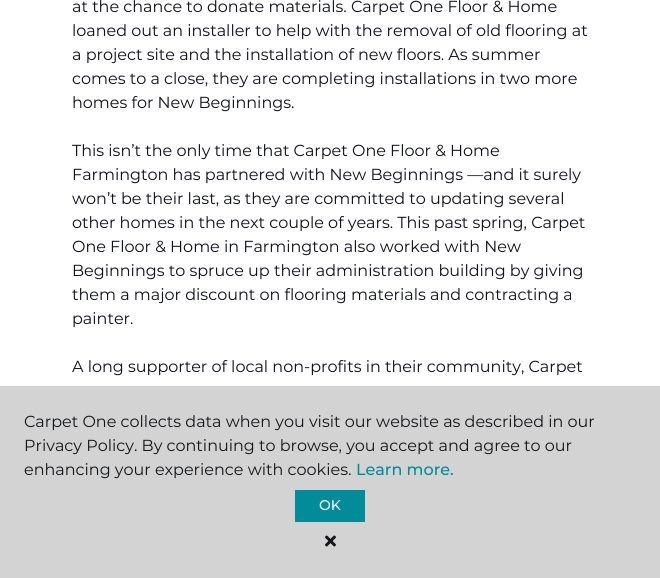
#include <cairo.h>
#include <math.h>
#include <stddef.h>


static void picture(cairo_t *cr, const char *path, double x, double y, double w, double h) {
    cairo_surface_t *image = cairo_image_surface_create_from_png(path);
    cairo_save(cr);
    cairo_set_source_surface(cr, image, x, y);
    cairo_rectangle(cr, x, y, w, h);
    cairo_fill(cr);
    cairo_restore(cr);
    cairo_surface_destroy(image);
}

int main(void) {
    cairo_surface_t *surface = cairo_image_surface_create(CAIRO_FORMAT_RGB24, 660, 578);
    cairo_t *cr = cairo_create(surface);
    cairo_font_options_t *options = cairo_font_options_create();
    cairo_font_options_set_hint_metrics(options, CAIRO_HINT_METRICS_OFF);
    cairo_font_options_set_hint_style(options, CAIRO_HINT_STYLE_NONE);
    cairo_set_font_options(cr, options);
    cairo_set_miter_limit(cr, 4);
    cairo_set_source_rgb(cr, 1, 1, 1);
    cairo_paint(cr);
    cairo_select_font_face(cr, "Montserrat", CAIRO_FONT_SLANT_NORMAL, CAIRO_FONT_WEIGHT_NORMAL);
    cairo_set_font_size(cr, 16);
    cairo_set_source_rgb(cr, 0.055, 0.063, 0.102);
    cairo_move_to(cr, 72, 12);
    cairo_show_text(cr, "at the chance to donate materials. Carpet One Floor & Home");
    cairo_move_to(cr, 72, 36);
    cairo_show_text(cr, "loaned out an installer to help with the removal of old flooring at");
    cairo_move_to(cr, 72, 60);
    cairo_show_text(cr, "a project site and the installation of new floors. As summer");
    cairo_move_to(cr, 72, 84);
    cairo_show_text(cr, "comes to a close, they are completing installations in two more");
    cairo_move_to(cr, 72, 108);
    cairo_show_text(cr, "homes for New Beginnings.");
    cairo_move_to(cr, 72, 156);
    cairo_show_text(cr, "This isn’t the only time that Carpet One Floor & Home");
    cairo_move_to(cr, 72, 180);
    cairo_show_text(cr, "Farmington has partnered with New Beginnings —and it surely");
    cairo_move_to(cr, 72, 204);
    cairo_show_text(cr, "won’t be their last, as they are committed to updating several");
    cairo_move_to(cr, 72, 228);
    cairo_show_text(cr, "other homes in the next couple of years. This past spring, Carpet");
    cairo_move_to(cr, 72, 252);
    cairo_show_text(cr, "One Floor & Home in Farmington also worked with New");
    cairo_move_to(cr, 72, 276);
    cairo_show_text(cr, "Beginnings to spruce up their administration building by giving");
    cairo_move_to(cr, 72, 300);
    cairo_show_text(cr, "them a major discount on flooring materials and contracting a");
    cairo_move_to(cr, 72, 324);
    cairo_show_text(cr, "painter.");
    cairo_move_to(cr, 72, 372);
    cairo_show_text(cr, "A long supporter of local non-profits in their community, Carpet");
    cairo_set_source_rgb(cr, 0.827, 0.827, 0.831);
    cairo_rectangle(cr, 0, 386, 660, 192);
    cairo_fill(cr);
    cairo_set_source_rgb(cr, 0.078, 0.086, 0.098);
    cairo_move_to(cr, 24, 427);
    cairo_show_text(cr, "Carpet One collects data when you visit our website as described in our");
    cairo_move_to(cr, 24, 451);
    cairo_show_text(cr, "Privacy Policy. By continuing to browse, you accept and agree to our");
    cairo_move_to(cr, 24, 475);
    cairo_show_text(cr, "enhancing your experience with cookies.");
    cairo_select_font_face(cr, "Montserrat Medium", CAIRO_FONT_SLANT_NORMAL, CAIRO_FONT_WEIGHT_NORMAL);
    cairo_set_source_rgb(cr, 0, 0.549, 0.6);
    cairo_move_to(cr, 356, 475);
    cairo_show_text(cr, "Learn more.");
    cairo_rectangle(cr, 295, 490, 70, 32);
    cairo_fill(cr);
    cairo_set_font_size(cr, 14);
    cairo_set_source_rgb(cr, 1, 1, 1);
    cairo_move_to(cr, 319, 510);
    cairo_show_text(cr, "OK");
    picture(cr, "img1.png", 325, 535, 11, 12);
    cairo_surface_write_to_png(surface, "page.png");
    cairo_font_options_destroy(options);
    cairo_destroy(cr);
    cairo_surface_destroy(surface);
    return 0;
}
